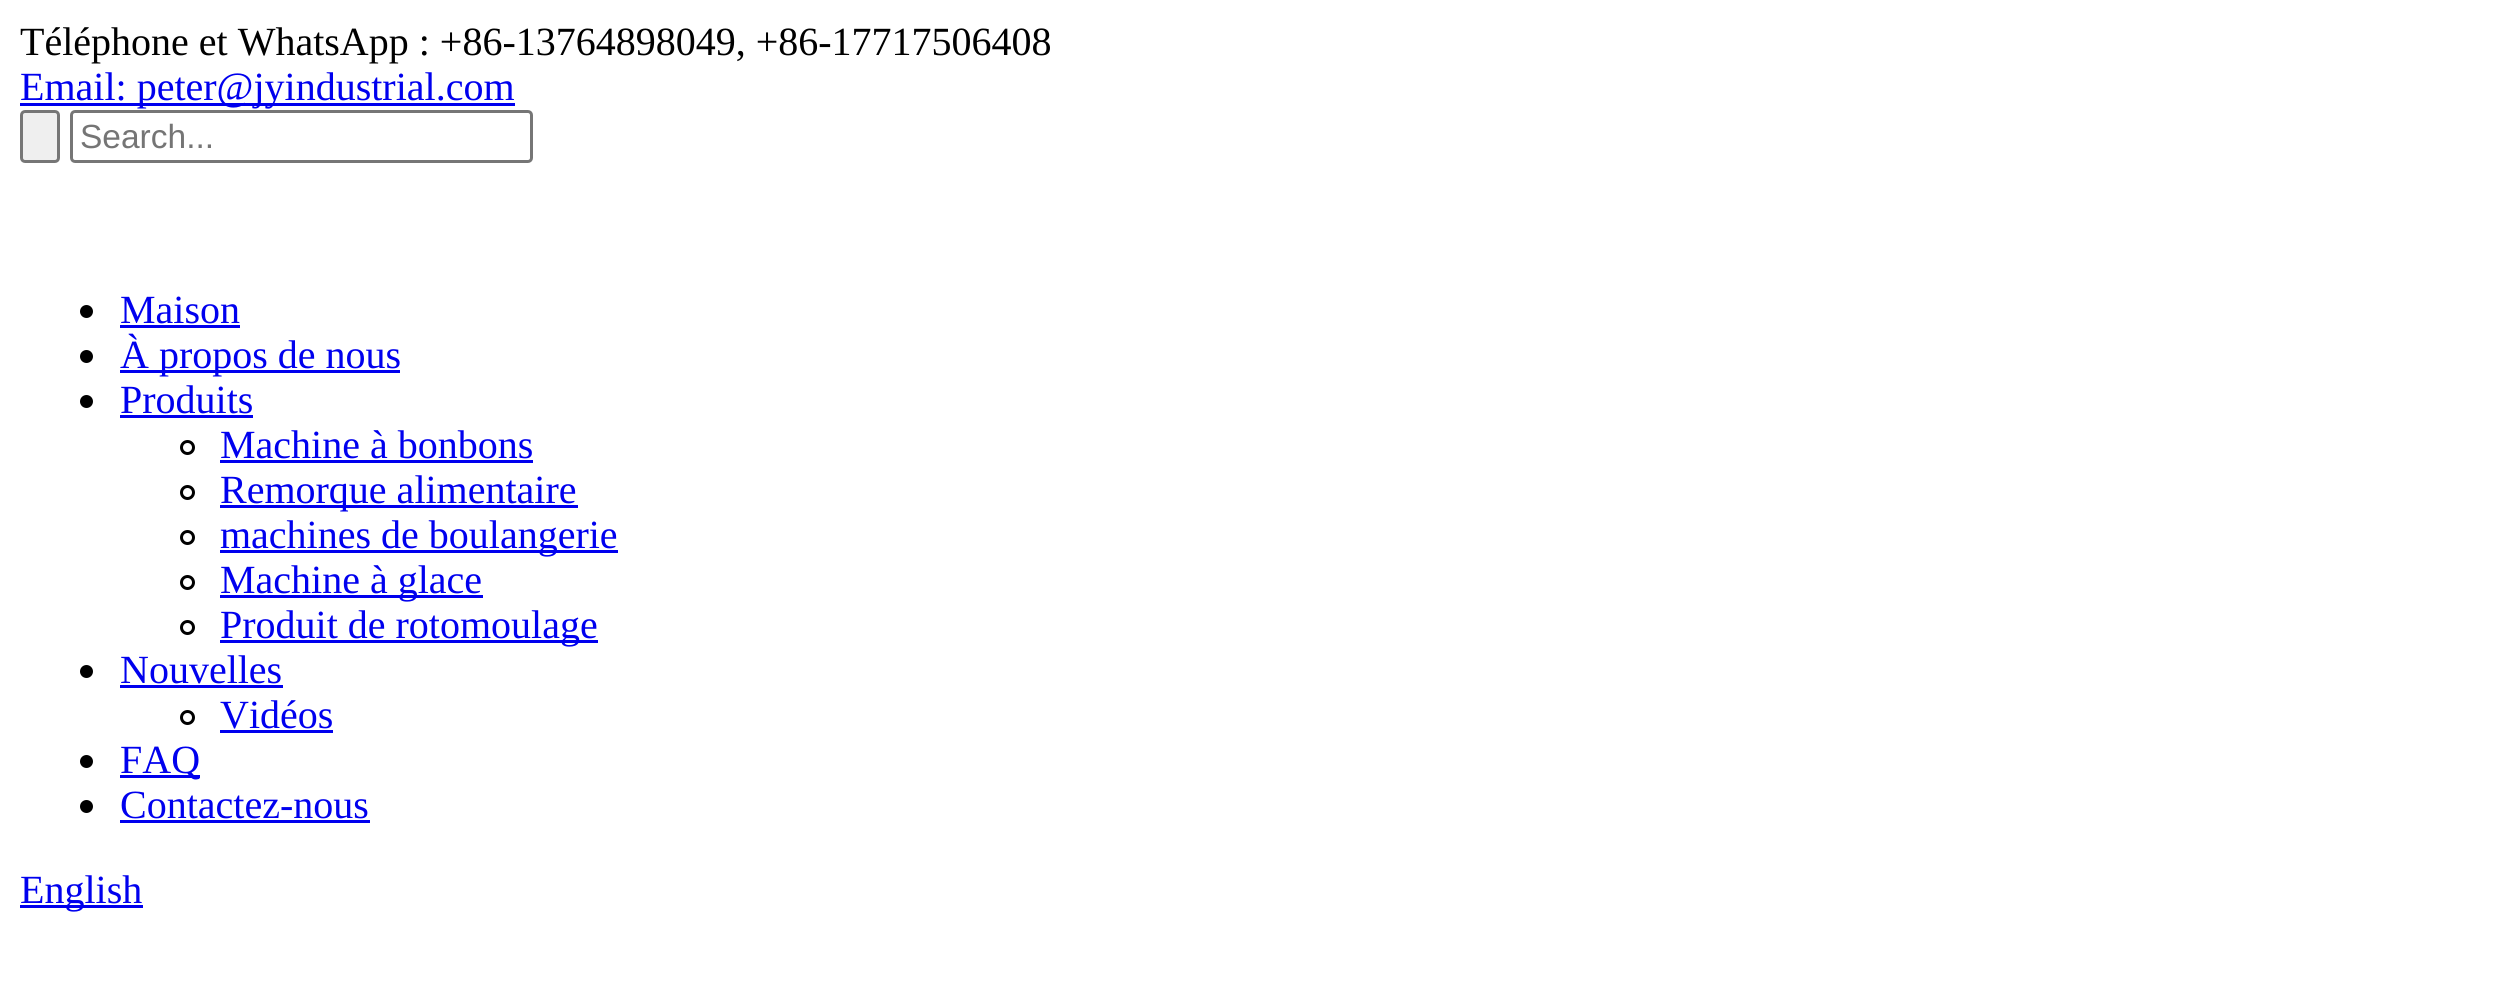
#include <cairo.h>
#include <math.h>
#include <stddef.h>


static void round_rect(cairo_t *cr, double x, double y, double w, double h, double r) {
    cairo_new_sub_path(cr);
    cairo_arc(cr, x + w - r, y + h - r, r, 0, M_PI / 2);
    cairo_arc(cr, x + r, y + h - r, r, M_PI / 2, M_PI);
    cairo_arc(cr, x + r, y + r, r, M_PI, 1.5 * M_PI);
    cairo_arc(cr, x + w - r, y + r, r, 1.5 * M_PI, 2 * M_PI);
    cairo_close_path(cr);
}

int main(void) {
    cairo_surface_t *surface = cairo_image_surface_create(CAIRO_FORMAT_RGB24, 2500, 1005);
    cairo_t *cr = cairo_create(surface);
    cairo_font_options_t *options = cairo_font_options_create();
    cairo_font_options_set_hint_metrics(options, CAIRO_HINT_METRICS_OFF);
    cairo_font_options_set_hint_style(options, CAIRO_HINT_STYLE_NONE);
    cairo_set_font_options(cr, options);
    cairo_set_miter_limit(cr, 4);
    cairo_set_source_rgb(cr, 1, 1, 1);
    cairo_paint(cr);
    cairo_select_font_face(cr, "Liberation Serif", CAIRO_FONT_SLANT_NORMAL, CAIRO_FONT_WEIGHT_NORMAL);
    cairo_set_font_size(cr, 40);
    cairo_set_source_rgb(cr, 0, 0, 0);
    cairo_move_to(cr, 20, 55);
    cairo_show_text(cr, "Téléphone et WhatsApp : +86-13764898049, +86-17717506408");
    cairo_set_source_rgb(cr, 0, 0, 0.933);
    cairo_rectangle(cr, 20, 103, 495, 3);
    cairo_fill(cr);
    cairo_move_to(cr, 20, 100);
    cairo_show_text(cr, "Email: peter@jyindustrial.com");
    cairo_set_source_rgb(cr, 0.937, 0.937, 0.937);
    round_rect(cr, 21.5, 111.5, 37, 50, 3.5);
    cairo_fill_preserve(cr);
    cairo_set_source_rgb(cr, 0.463, 0.463, 0.463);
    cairo_set_line_width(cr, 3);
    cairo_stroke(cr);
    round_rect(cr, 71.5, 111.5, 460, 50, 3.5);
    cairo_stroke(cr);
    cairo_select_font_face(cr, "Liberation Sans", CAIRO_FONT_SLANT_NORMAL, CAIRO_FONT_WEIGHT_NORMAL);
    cairo_set_font_size(cr, 33.5);
    cairo_set_source_rgb(cr, 0.459, 0.459, 0.459);
    cairo_move_to(cr, 80, 148);
    cairo_show_text(cr, "Search...");
    cairo_set_source_rgb(cr, 0, 0, 0);
    cairo_new_path(cr);
    cairo_arc(cr, 86.5, 311.5, 6.5, 0, 2 * M_PI);
    cairo_fill(cr);
    cairo_select_font_face(cr, "Liberation Serif", CAIRO_FONT_SLANT_NORMAL, CAIRO_FONT_WEIGHT_NORMAL);
    cairo_set_font_size(cr, 40);
    cairo_set_source_rgb(cr, 0, 0, 0.933);
    cairo_move_to(cr, 120, 323);
    cairo_show_text(cr, "Maison");
    cairo_rectangle(cr, 120, 325, 120, 3);
    cairo_fill(cr);
    cairo_set_source_rgb(cr, 0, 0, 0);
    cairo_arc(cr, 86.5, 356.5, 6.5, 0, 2 * M_PI);
    cairo_fill(cr);
    cairo_set_source_rgb(cr, 0, 0, 0.933);
    cairo_rectangle(cr, 120, 370, 280, 3);
    cairo_fill(cr);
    cairo_move_to(cr, 120, 368);
    cairo_show_text(cr, "À propos de nous");
    cairo_set_source_rgb(cr, 0, 0, 0);
    cairo_new_path(cr);
    cairo_arc(cr, 86.5, 401.5, 6.5, 0, 2 * M_PI);
    cairo_fill(cr);
    cairo_set_source_rgb(cr, 0, 0, 0.933);
    cairo_move_to(cr, 120, 413);
    cairo_show_text(cr, "Produits");
    cairo_rectangle(cr, 120, 415, 133, 3);
    cairo_fill(cr);
    cairo_arc(cr, 187.5, 447.5, 6, 0, 2 * M_PI);
    cairo_set_source_rgb(cr, 0, 0, 0);
    cairo_stroke(cr);
    cairo_set_source_rgb(cr, 0, 0, 0.933);
    cairo_move_to(cr, 220, 458);
    cairo_show_text(cr, "Machine à bonbons");
    cairo_rectangle(cr, 220, 460, 313, 3);
    cairo_fill(cr);
    cairo_arc(cr, 187.5, 492.5, 6, 0, 2 * M_PI);
    cairo_set_source_rgb(cr, 0, 0, 0);
    cairo_stroke(cr);
    cairo_set_source_rgb(cr, 0, 0, 0.933);
    cairo_rectangle(cr, 220, 505, 358, 3);
    cairo_fill(cr);
    cairo_move_to(cr, 220, 503);
    cairo_show_text(cr, "Remorque alimentaire");
    cairo_new_path(cr);
    cairo_arc(cr, 187.5, 537.5, 6, 0, 2 * M_PI);
    cairo_set_source_rgb(cr, 0, 0, 0);
    cairo_stroke(cr);
    cairo_set_source_rgb(cr, 0, 0, 0.933);
    cairo_rectangle(cr, 220, 550, 398, 3);
    cairo_fill(cr);
    cairo_move_to(cr, 220, 548);
    cairo_show_text(cr, "machines de boulangerie");
    cairo_new_path(cr);
    cairo_arc(cr, 187.5, 582.5, 6, 0, 2 * M_PI);
    cairo_set_source_rgb(cr, 0, 0, 0);
    cairo_stroke(cr);
    cairo_set_source_rgb(cr, 0, 0, 0.933);
    cairo_rectangle(cr, 220, 595, 263, 3);
    cairo_fill(cr);
    cairo_move_to(cr, 220, 593);
    cairo_show_text(cr, "Machine à glace");
    cairo_new_path(cr);
    cairo_arc(cr, 187.5, 627.5, 6, 0, 2 * M_PI);
    cairo_set_source_rgb(cr, 0, 0, 0);
    cairo_stroke(cr);
    cairo_set_source_rgb(cr, 0, 0, 0.933);
    cairo_rectangle(cr, 220, 640, 378, 3);
    cairo_fill(cr);
    cairo_move_to(cr, 220, 638);
    cairo_show_text(cr, "Produit de rotomoulage");
    cairo_set_source_rgb(cr, 0, 0, 0);
    cairo_new_path(cr);
    cairo_arc(cr, 86.5, 671.5, 6.5, 0, 2 * M_PI);
    cairo_fill(cr);
    cairo_set_source_rgb(cr, 0, 0, 0.933);
    cairo_move_to(cr, 120, 683);
    cairo_show_text(cr, "Nouvelles");
    cairo_rectangle(cr, 120, 685, 163, 3);
    cairo_fill(cr);
    cairo_arc(cr, 187.5, 717.5, 6, 0, 2 * M_PI);
    cairo_set_source_rgb(cr, 0, 0, 0);
    cairo_stroke(cr);
    cairo_set_source_rgb(cr, 0, 0, 0.933);
    cairo_move_to(cr, 220, 728);
    cairo_show_text(cr, "Vidéos");
    cairo_rectangle(cr, 220, 730, 113, 3);
    cairo_fill(cr);
    cairo_set_source_rgb(cr, 0, 0, 0);
    cairo_arc(cr, 86.5, 761.5, 6.5, 0, 2 * M_PI);
    cairo_fill(cr);
    cairo_set_source_rgb(cr, 0, 0, 0.933);
    cairo_rectangle(cr, 120, 775, 80, 3);
    cairo_fill(cr);
    cairo_move_to(cr, 120, 773);
    cairo_show_text(cr, "FAQ");
    cairo_set_source_rgb(cr, 0, 0, 0);
    cairo_new_path(cr);
    cairo_arc(cr, 86.5, 806.5, 6.5, 0, 2 * M_PI);
    cairo_fill(cr);
    cairo_set_source_rgb(cr, 0, 0, 0.933);
    cairo_move_to(cr, 120, 818);
    cairo_show_text(cr, "Contactez-nous");
    cairo_rectangle(cr, 120, 820, 250, 3);
    cairo_fill(cr);
    cairo_rectangle(cr, 20, 905, 123, 3);
    cairo_fill(cr);
    cairo_move_to(cr, 20, 903);
    cairo_show_text(cr, "English");
    cairo_surface_write_to_png(surface, "page.png");
    cairo_font_options_destroy(options);
    cairo_destroy(cr);
    cairo_surface_destroy(surface);
    return 0;
}
